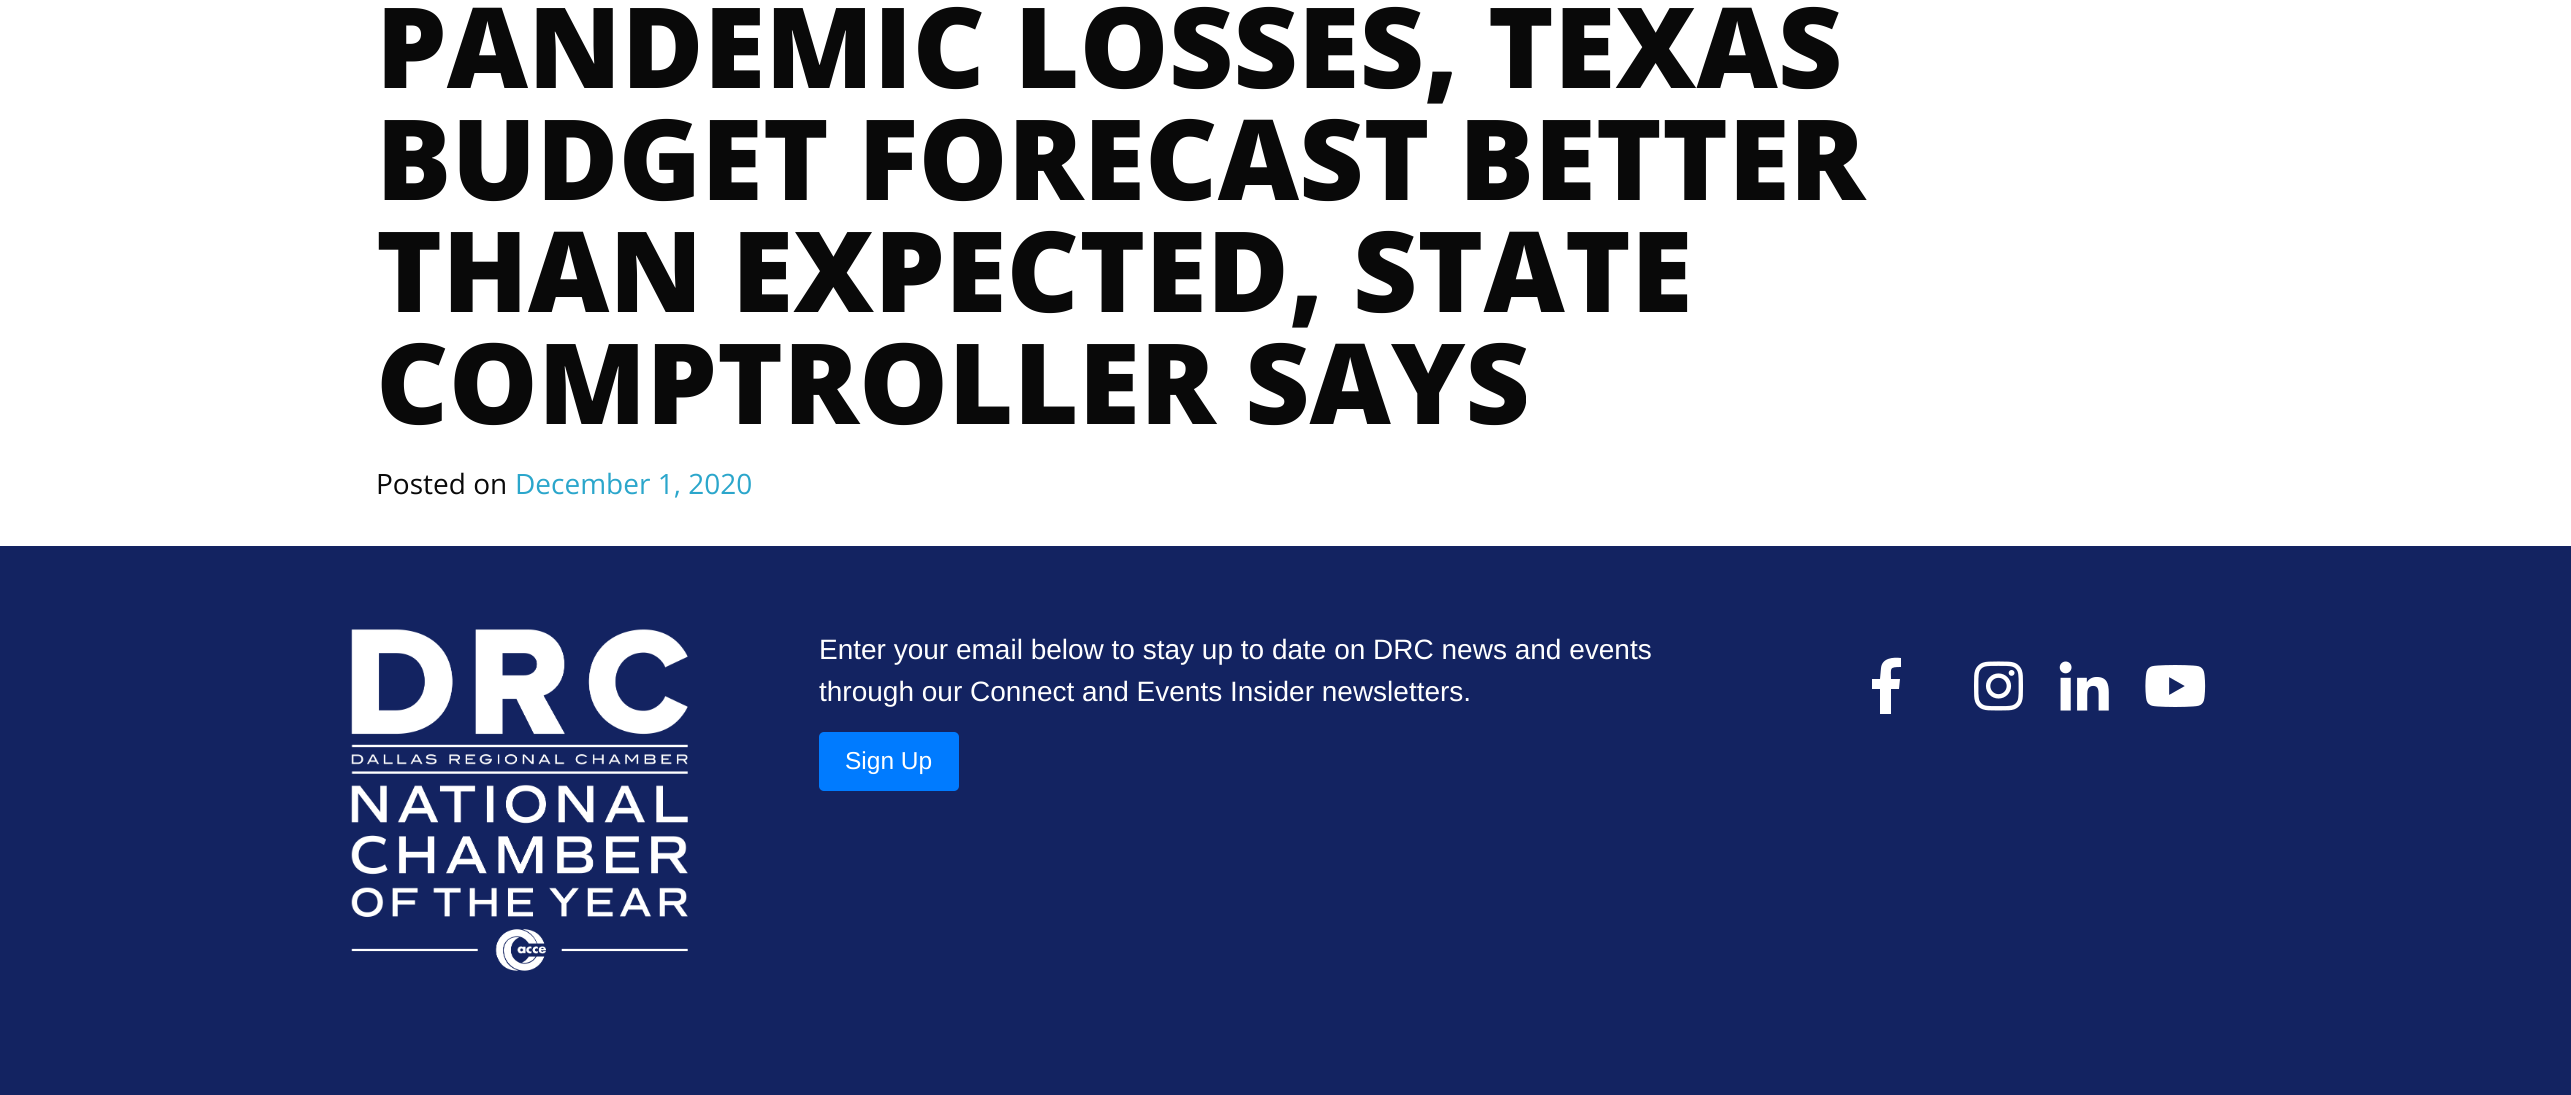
#include <cairo.h>
#include <math.h>
#include <stddef.h>


static void round_rect(cairo_t *cr, double x, double y, double w, double h, double r) {
    cairo_new_sub_path(cr);
    cairo_arc(cr, x + w - r, y + h - r, r, 0, M_PI / 2);
    cairo_arc(cr, x + r, y + h - r, r, M_PI / 2, M_PI);
    cairo_arc(cr, x + r, y + r, r, M_PI, 1.5 * M_PI);
    cairo_arc(cr, x + w - r, y + r, r, 1.5 * M_PI, 2 * M_PI);
    cairo_close_path(cr);
}

static void picture(cairo_t *cr, const char *path, double x, double y, double w, double h) {
    cairo_surface_t *image = cairo_image_surface_create_from_png(path);
    cairo_save(cr);
    cairo_set_source_surface(cr, image, x, y);
    cairo_rectangle(cr, x, y, w, h);
    cairo_fill(cr);
    cairo_restore(cr);
    cairo_surface_destroy(image);
}

int main(void) {
    cairo_surface_t *surface = cairo_image_surface_create(CAIRO_FORMAT_RGB24, 2571, 1095);
    cairo_t *cr = cairo_create(surface);
    cairo_font_options_t *options = cairo_font_options_create();
    cairo_font_options_set_hint_metrics(options, CAIRO_HINT_METRICS_OFF);
    cairo_font_options_set_hint_style(options, CAIRO_HINT_STYLE_NONE);
    cairo_set_font_options(cr, options);
    cairo_set_miter_limit(cr, 4);
    cairo_set_source_rgb(cr, 1, 1, 1);
    cairo_paint(cr);
    cairo_select_font_face(cr, "Open Sans ExtraBold", CAIRO_FONT_SLANT_NORMAL, CAIRO_FONT_WEIGHT_NORMAL);
    cairo_set_font_size(cr, 112);
    cairo_set_source_rgb(cr, 0.039, 0.039, 0.039);
    cairo_move_to(cr, 376, 88);
    cairo_show_text(cr, "PANDEMIC LOSSES, TEXAS");
    cairo_move_to(cr, 376, 200);
    cairo_show_text(cr, "BUDGET FORECAST BETTER");
    cairo_move_to(cr, 376, 312);
    cairo_show_text(cr, "THAN EXPECTED, STATE");
    cairo_move_to(cr, 376, 424);
    cairo_show_text(cr, "COMPTROLLER SAYS");
    cairo_select_font_face(cr, "Open Sans", CAIRO_FONT_SLANT_NORMAL, CAIRO_FONT_WEIGHT_NORMAL);
    cairo_set_font_size(cr, 28);
    cairo_move_to(cr, 376, 494);
    cairo_show_text(cr, "Posted on");
    cairo_set_source_rgb(cr, 0.169, 0.651, 0.796);
    cairo_move_to(cr, 515, 494);
    cairo_show_text(cr, "December 1, 2020");
    cairo_set_source_rgb(cr, 0.075, 0.137, 0.38);
    cairo_rectangle(cr, 0, 546, 2571, 549);
    cairo_fill(cr);
    picture(cr, "img1.png", 351, 629, 337, 342);
    cairo_select_font_face(cr, "Liberation Sans", CAIRO_FONT_SLANT_NORMAL, CAIRO_FONT_WEIGHT_NORMAL);
    cairo_set_source_rgb(cr, 1, 1, 1);
    cairo_move_to(cr, 819, 659);
    cairo_show_text(cr, "Enter your email below to stay up to date on DRC news and events");
    cairo_move_to(cr, 819, 701);
    cairo_show_text(cr, "through our Connect and Events Insider newsletters.");
    cairo_set_source_rgb(cr, 0, 0.482, 1);
    round_rect(cr, 819, 732, 140, 59, 5);
    cairo_fill(cr);
    cairo_set_font_size(cr, 24.5);
    cairo_set_source_rgb(cr, 1, 1, 1);
    cairo_move_to(cr, 845, 769);
    cairo_show_text(cr, "Sign Up");
    cairo_new_path(cr);
    cairo_move_to(cr, 1880, 714);
    cairo_line_to(cr, 1880, 689);
    cairo_line_to(cr, 1872, 689);
    cairo_line_to(cr, 1872, 679);
    cairo_line_to(cr, 1880, 679);
    cairo_line_to(cr, 1881, 668);
    cairo_curve_to(cr, 1882, 658, 1893, 657, 1901, 658);
    cairo_line_to(cr, 1901, 667);
    cairo_curve_to(cr, 1889, 667, 1891, 668, 1891, 679);
    cairo_line_to(cr, 1900, 679);
    cairo_line_to(cr, 1899, 689);
    cairo_line_to(cr, 1891, 689);
    cairo_line_to(cr, 1891, 714);
    cairo_fill(cr);
    picture(cr, "img2.png", 1974, 661, 49, 50);
    picture(cr, "img3.png", 2059, 661, 50, 50);
    picture(cr, "img4.png", 2145, 665, 61, 42);
    cairo_surface_write_to_png(surface, "page.png");
    cairo_font_options_destroy(options);
    cairo_destroy(cr);
    cairo_surface_destroy(surface);
    return 0;
}
